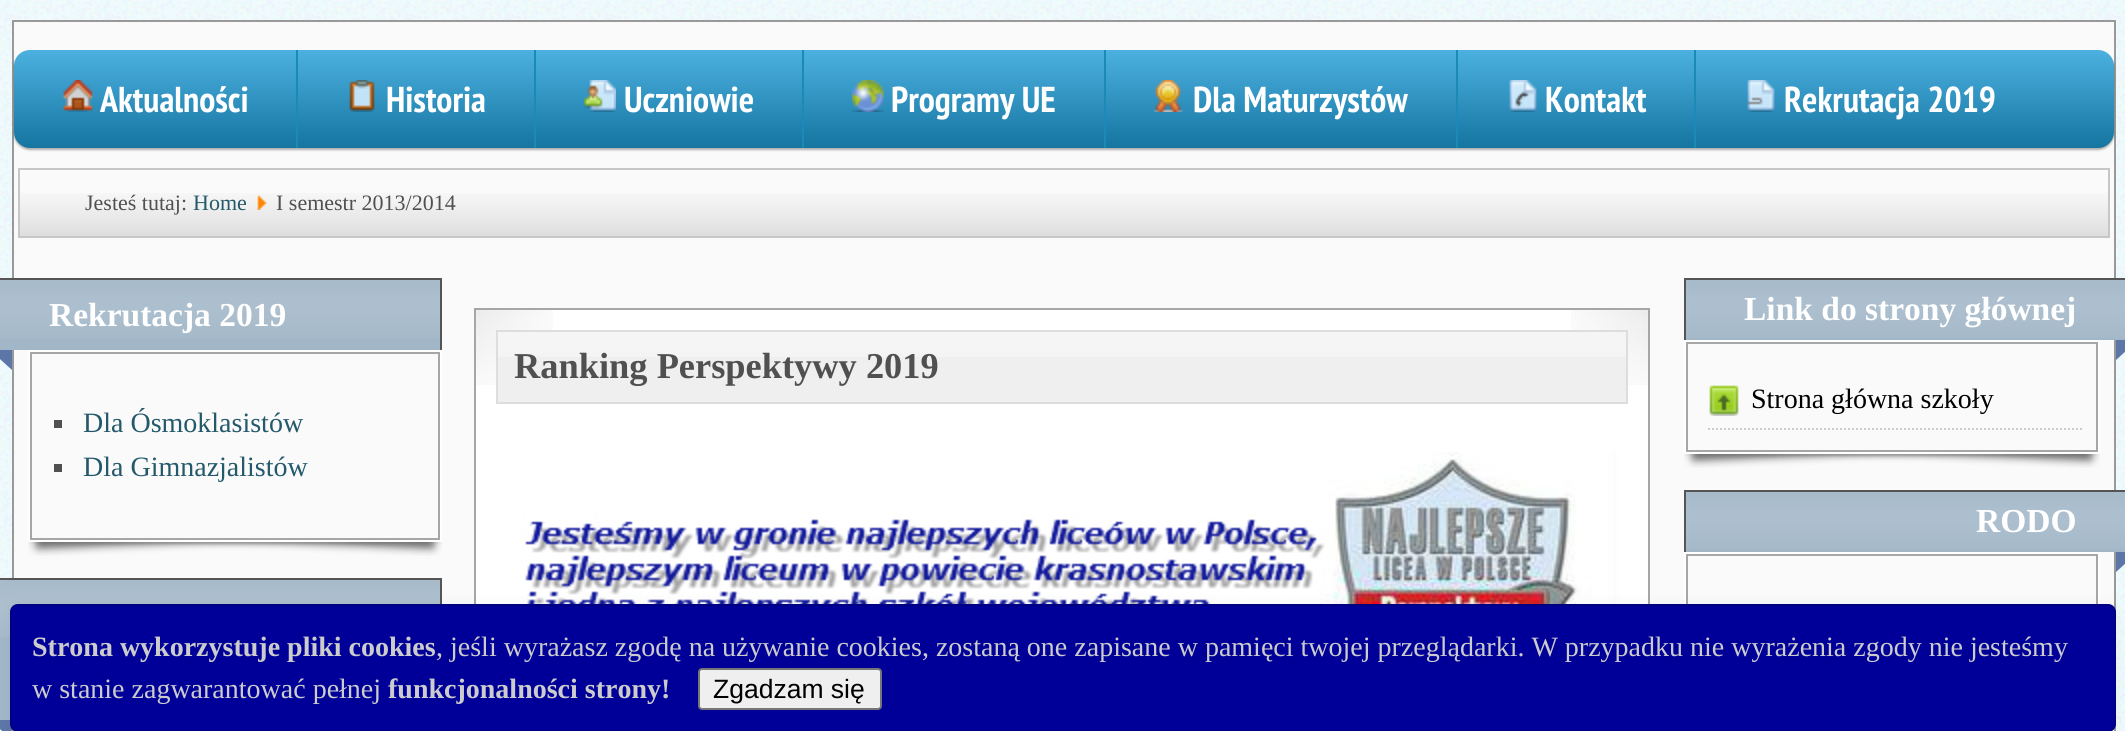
#include <cairo.h>
#include <math.h>
#include <stddef.h>


static void round_rect(cairo_t *cr, double x, double y, double w, double h, double r) {
    cairo_new_sub_path(cr);
    cairo_arc(cr, x + w - r, y + h - r, r, 0, M_PI / 2);
    cairo_arc(cr, x + r, y + h - r, r, M_PI / 2, M_PI);
    cairo_arc(cr, x + r, y + r, r, M_PI, 1.5 * M_PI);
    cairo_arc(cr, x + w - r, y + r, r, 1.5 * M_PI, 2 * M_PI);
    cairo_close_path(cr);
}

static void shadow(cairo_t *cr, double x, double y, double w, double h, double r, double blur, double alpha) {
    cairo_push_group_with_content(cr, CAIRO_CONTENT_ALPHA);
    cairo_set_operator(cr, CAIRO_OPERATOR_SOURCE);
    for (int i = 15; i >= -15 && fmin(w, h) + blur * i / 3 > 0; i -= 2) {
        double e = blur * i / 6;
        cairo_set_source_rgba(cr, 0, 0, 0, alpha * erfc((i - 1) / 8.5) / 2);
        round_rect(cr, x - e, y - e, w + 2 * e, h + 2 * e, fmax(0, fmin(r + e + blur * .6, fmin(w, h) / 2 + e)));
        cairo_fill(cr);
    }
    cairo_pattern_t *soft = cairo_pop_group(cr);
    cairo_mask(cr, soft);
    cairo_pattern_destroy(soft);
}

static void picture(cairo_t *cr, const char *path, double x, double y, double w, double h) {
    cairo_surface_t *image = cairo_image_surface_create_from_png(path);
    cairo_save(cr);
    cairo_set_source_surface(cr, image, x, y);
    cairo_rectangle(cr, x, y, w, h);
    cairo_fill(cr);
    cairo_restore(cr);
    cairo_surface_destroy(image);
}

int main(void) {
    cairo_surface_t *surface = cairo_image_surface_create(CAIRO_FORMAT_RGB24, 2125, 731);
    cairo_t *cr = cairo_create(surface);
    cairo_font_options_t *options = cairo_font_options_create();
    cairo_font_options_set_hint_metrics(options, CAIRO_HINT_METRICS_OFF);
    cairo_font_options_set_hint_style(options, CAIRO_HINT_STYLE_NONE);
    cairo_set_font_options(cr, options);
    cairo_set_miter_limit(cr, 4);
    cairo_pattern_t *gradient;
    cairo_set_source_rgb(cr, 0.941, 0.988, 1);
    cairo_paint(cr);
    picture(cr, "img1.png", 0, 0, 2125, 731);
    cairo_set_source_rgb(cr, 0.98, 0.98, 0.98);
    cairo_rectangle(cr, 13, 21, 2102, 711);
    cairo_fill_preserve(cr);
    cairo_set_source_rgb(cr, 0.6, 0.6, 0.6);
    cairo_stroke(cr);
    cairo_set_source_rgb(cr, 0, 0, 0);
    shadow(cr, 14, 52, 2100, 98, 16, 1, 0.3);
    gradient = cairo_pattern_create_linear(1064, 50, 1064, 148);
    cairo_pattern_add_color_stop_rgba(gradient, 0, 0.298, 0.694, 0.878, 1);
    cairo_pattern_add_color_stop_rgba(gradient, 1, 0.086, 0.459, 0.631, 1);
    cairo_set_source(cr, gradient);
    cairo_pattern_destroy(gradient);
    round_rect(cr, 14, 50, 2100, 98, 16);
    cairo_fill(cr);
    picture(cr, "img2.png", 62, 80, 31, 32);
    cairo_select_font_face(cr, "PT Sans Narrow", CAIRO_FONT_SLANT_NORMAL, CAIRO_FONT_WEIGHT_BOLD);
    cairo_set_font_size(cr, 36);
    cairo_set_source_rgb(cr, 1, 1, 1);
    cairo_move_to(cr, 100, 112);
    cairo_show_text(cr, "Aktualności");
    cairo_set_source_rgb(cr, 0.102, 0.545, 0.725);
    cairo_rectangle(cr, 296, 50, 2, 98);
    cairo_fill(cr);
    picture(cr, "img3.png", 349, 80, 26, 32);
    cairo_set_source_rgb(cr, 1, 1, 1);
    cairo_move_to(cr, 386, 112);
    cairo_show_text(cr, "Historia");
    cairo_set_source_rgb(cr, 0.102, 0.545, 0.725);
    cairo_rectangle(cr, 534, 50, 2, 98);
    cairo_fill(cr);
    picture(cr, "img4.png", 584, 80, 32, 32);
    cairo_set_source_rgb(cr, 1, 1, 1);
    cairo_move_to(cr, 624, 112);
    cairo_show_text(cr, "Uczniowie");
    cairo_set_source_rgb(cr, 0.102, 0.545, 0.725);
    cairo_rectangle(cr, 802, 50, 2, 98);
    cairo_fill(cr);
    picture(cr, "img5.png", 852, 80, 32, 32);
    cairo_set_source_rgb(cr, 1, 1, 1);
    cairo_move_to(cr, 891, 112);
    cairo_show_text(cr, "Programy UE");
    cairo_set_source_rgb(cr, 0.102, 0.545, 0.725);
    cairo_rectangle(cr, 1104, 50, 2, 98);
    cairo_fill(cr);
    picture(cr, "img6.png", 1154, 80, 30, 32);
    cairo_set_source_rgb(cr, 1, 1, 1);
    cairo_move_to(cr, 1193, 112);
    cairo_show_text(cr, "Dla Maturzystów");
    cairo_set_source_rgb(cr, 0.102, 0.545, 0.725);
    cairo_rectangle(cr, 1456, 50, 2, 98);
    cairo_fill(cr);
    picture(cr, "img7.png", 1509, 80, 28, 32);
    cairo_set_source_rgb(cr, 1, 1, 1);
    cairo_move_to(cr, 1545, 112);
    cairo_show_text(cr, "Kontakt");
    cairo_set_source_rgb(cr, 0.102, 0.545, 0.725);
    cairo_rectangle(cr, 1694, 50, 2, 98);
    cairo_fill(cr);
    picture(cr, "img8.png", 1747, 80, 28, 32);
    cairo_set_source_rgb(cr, 1, 1, 1);
    cairo_move_to(cr, 1784, 112);
    cairo_show_text(cr, "Rekrutacja 2019");
    picture(cr, "img9.png", 20, 193, 2088, 43);
    cairo_rectangle(cr, 19, 169, 2090, 68);
    cairo_set_source_rgb(cr, 0.78, 0.78, 0.78);
    cairo_stroke(cr);
    cairo_select_font_face(cr, "Liberation Serif", CAIRO_FONT_SLANT_NORMAL, CAIRO_FONT_WEIGHT_NORMAL);
    cairo_set_font_size(cr, 22);
    cairo_set_source_rgb(cr, 0.314, 0.314, 0.314);
    cairo_move_to(cr, 85, 210);
    cairo_show_text(cr, "Jesteś tutaj:");
    cairo_set_source_rgb(cr, 0.141, 0.349, 0.42);
    cairo_move_to(cr, 193, 210);
    cairo_show_text(cr, "Home");
    picture(cr, "img10.png", 257, 195, 10, 15);
    cairo_set_source_rgb(cr, 0.314, 0.314, 0.314);
    cairo_move_to(cr, 276, 210);
    cairo_show_text(cr, "I semestr 2013/2014");
    cairo_set_source_rgb(cr, 0.631, 0.714, 0.78);
    cairo_rectangle(cr, 0, 280, 440, 70);
    cairo_fill(cr);
    picture(cr, "img11.png", 0, 280, 440, 58);
    cairo_set_source_rgb(cr, 0.333, 0.333, 0.333);
    cairo_rectangle(cr, 0, 278, 442, 2);
    cairo_fill(cr);
    cairo_rectangle(cr, 440, 278, 2, 72);
    cairo_fill(cr);
    cairo_select_font_face(cr, "Liberation Serif", CAIRO_FONT_SLANT_NORMAL, CAIRO_FONT_WEIGHT_BOLD);
    cairo_set_font_size(cr, 33.5);
    cairo_set_source_rgb(cr, 1, 1, 1);
    cairo_move_to(cr, 49, 326);
    cairo_show_text(cr, "Rekrutacja 2019");
    cairo_set_source_rgb(cr, 0.365, 0.463, 0.659);
    cairo_new_path(cr);
    cairo_move_to(cr, -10, 350);
    cairo_line_to(cr, 12, 350);
    cairo_line_to(cr, 12, 370);
    cairo_close_path(cr);
    cairo_fill(cr);
    cairo_rectangle(cr, 29, 351, 412, 190);
    cairo_set_source_rgb(cr, 1, 1, 1);
    cairo_stroke(cr);
    cairo_rectangle(cr, 31, 353, 408, 186);
    cairo_set_source_rgb(cr, 0.651, 0.651, 0.651);
    cairo_stroke(cr);
    cairo_set_source_rgb(cr, 0.314, 0.314, 0.314);
    cairo_rectangle(cr, 54, 420, 8, 8);
    cairo_fill(cr);
    cairo_select_font_face(cr, "Liberation Serif", CAIRO_FONT_SLANT_NORMAL, CAIRO_FONT_WEIGHT_NORMAL);
    cairo_set_font_size(cr, 28);
    cairo_set_source_rgb(cr, 0.141, 0.349, 0.42);
    cairo_move_to(cr, 83, 432);
    cairo_show_text(cr, "Dla Ósmoklasistów");
    cairo_set_source_rgb(cr, 0.314, 0.314, 0.314);
    cairo_rectangle(cr, 54, 464, 8, 8);
    cairo_fill(cr);
    cairo_set_source_rgb(cr, 0.141, 0.349, 0.42);
    cairo_move_to(cr, 83, 476);
    cairo_show_text(cr, "Dla Gimnazjalistów");
    picture(cr, "img12.png", 28, 542, 414, 14);
    picture(cr, "img13.png", 28, 542, 414, 14);
    cairo_set_source_rgb(cr, 0.631, 0.714, 0.78);
    cairo_rectangle(cr, 0, 580, 440, 140);
    cairo_fill(cr);
    picture(cr, "img11.png", 0, 580, 440, 58);
    cairo_set_source_rgb(cr, 0.333, 0.333, 0.333);
    cairo_rectangle(cr, 0, 578, 442, 2);
    cairo_fill(cr);
    cairo_rectangle(cr, 440, 578, 2, 26);
    cairo_fill(cr);
    cairo_set_source_rgb(cr, 0.365, 0.463, 0.659);
    cairo_new_path(cr);
    cairo_move_to(cr, -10, 720);
    cairo_line_to(cr, 12, 720);
    cairo_line_to(cr, 12, 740);
    cairo_close_path(cr);
    cairo_fill(cr);
    cairo_set_source_rgb(cr, 1, 1, 1);
    cairo_rectangle(cr, 476, 310, 1172, 294);
    cairo_fill(cr);
    cairo_rectangle(cr, 475, 309, 1174, 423);
    cairo_set_source_rgb(cr, 0.651, 0.651, 0.651);
    cairo_stroke(cr);
    picture(cr, "img14.png", 1571, 310, 77, 75);
    picture(cr, "img15.png", 476, 310, 77, 75);
    cairo_set_source_rgb(cr, 0.937, 0.937, 0.937);
    cairo_rectangle(cr, 498, 332, 1128, 70);
    cairo_fill(cr);
    picture(cr, "img16.png", 498, 332, 1128, 25);
    cairo_rectangle(cr, 497, 331, 1130, 72);
    cairo_set_source_rgb(cr, 0.867, 0.867, 0.867);
    cairo_stroke(cr);
    cairo_select_font_face(cr, "Liberation Serif", CAIRO_FONT_SLANT_NORMAL, CAIRO_FONT_WEIGHT_BOLD);
    cairo_set_font_size(cr, 36.4);
    cairo_set_source_rgb(cr, 0.314, 0.314, 0.314);
    cairo_move_to(cr, 514, 378);
    cairo_show_text(cr, "Ranking Perspektywy 2019");
    picture(cr, "img17.png", 504, 452, 1116, 152);
    cairo_set_source_rgb(cr, 0.631, 0.714, 0.78);
    cairo_rectangle(cr, 1686, 280, 439, 60);
    cairo_fill(cr);
    picture(cr, "img18.png", 1686, 280, 439, 58);
    cairo_set_source_rgb(cr, 0.333, 0.333, 0.333);
    cairo_rectangle(cr, 1684, 278, 441, 2);
    cairo_fill(cr);
    cairo_rectangle(cr, 1684, 278, 2, 62);
    cairo_fill(cr);
    cairo_set_font_size(cr, 33.5);
    cairo_set_source_rgb(cr, 1, 1, 1);
    cairo_move_to(cr, 1744, 320);
    cairo_show_text(cr, "Link do strony głównej");
    cairo_set_source_rgb(cr, 0.365, 0.463, 0.659);
    cairo_new_path(cr);
    cairo_move_to(cr, 2116, 340);
    cairo_line_to(cr, 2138, 340);
    cairo_line_to(cr, 2116, 360);
    cairo_close_path(cr);
    cairo_fill(cr);
    cairo_rectangle(cr, 1685, 341, 414, 112);
    cairo_set_source_rgb(cr, 1, 1, 1);
    cairo_stroke(cr);
    cairo_rectangle(cr, 1687, 343, 410, 108);
    cairo_set_source_rgb(cr, 0.651, 0.651, 0.651);
    cairo_stroke(cr);
    cairo_new_path(cr);
    cairo_move_to(cr, 1708, 429);
    cairo_line_to(cr, 2082, 429);
    cairo_set_source_rgb(cr, 0.8, 0.8, 0.8);
    cairo_set_dash(cr, (double[]){2, 2}, 2, 0);
    cairo_stroke(cr);
    picture(cr, "img19.png", 1709, 385, 30, 31);
    cairo_select_font_face(cr, "Liberation Serif", CAIRO_FONT_SLANT_NORMAL, CAIRO_FONT_WEIGHT_NORMAL);
    cairo_set_font_size(cr, 28);
    cairo_set_source_rgb(cr, 0, 0, 0);
    cairo_move_to(cr, 1751, 408);
    cairo_show_text(cr, "Strona główna szkoły");
    picture(cr, "img20.png", 1684, 454, 416, 14);
    picture(cr, "img21.png", 1684, 454, 416, 14);
    cairo_set_source_rgb(cr, 0.631, 0.714, 0.78);
    cairo_rectangle(cr, 1686, 492, 439, 60);
    cairo_fill(cr);
    picture(cr, "img18.png", 1686, 492, 439, 58);
    cairo_set_source_rgb(cr, 0.333, 0.333, 0.333);
    cairo_rectangle(cr, 1684, 490, 441, 2);
    cairo_fill(cr);
    cairo_rectangle(cr, 1684, 490, 2, 62);
    cairo_fill(cr);
    cairo_select_font_face(cr, "Liberation Serif", CAIRO_FONT_SLANT_NORMAL, CAIRO_FONT_WEIGHT_BOLD);
    cairo_set_font_size(cr, 33.5);
    cairo_set_source_rgb(cr, 1, 1, 1);
    cairo_move_to(cr, 1976, 532);
    cairo_show_text(cr, "RODO");
    cairo_set_source_rgb(cr, 0.365, 0.463, 0.659);
    cairo_new_path(cr);
    cairo_move_to(cr, 2116, 552);
    cairo_line_to(cr, 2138, 552);
    cairo_line_to(cr, 2116, 572);
    cairo_close_path(cr);
    cairo_fill(cr);
    cairo_rectangle(cr, 1685, 553, 414, 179);
    cairo_set_source_rgb(cr, 1, 1, 1);
    cairo_set_dash(cr, NULL, 0, 0);
    cairo_stroke(cr);
    cairo_rectangle(cr, 1687, 555, 410, 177);
    cairo_set_source_rgb(cr, 0.651, 0.651, 0.651);
    cairo_stroke(cr);
    cairo_set_source_rgb(cr, 0, 0, 0);
    shadow(cr, 10, 604, 2106, 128, 8, 6, 0.05);
    cairo_set_source_rgb(cr, 0, 0, 0.6);
    round_rect(cr, 10, 604, 2106, 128, 8);
    cairo_fill(cr);
    round_rect(cr, 11, 605, 2104, 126, 7);
    cairo_set_source_rgba(cr, 0, 0, 0, 0.15);
    cairo_stroke(cr);
    cairo_set_font_size(cr, 28);
    cairo_set_source_rgb(cr, 0.8, 0.8, 0.8);
    cairo_move_to(cr, 32, 656);
    cairo_show_text(cr, "Strona wykorzystuje pliki cookies");
    cairo_select_font_face(cr, "Liberation Serif", CAIRO_FONT_SLANT_NORMAL, CAIRO_FONT_WEIGHT_NORMAL);
    cairo_move_to(cr, 436, 656);
    cairo_show_text(cr, ", jeśli wyrażasz zgodę na używanie cookies, zostaną one zapisane w pamięci twojej przeglądarki. W przypadku nie wyrażenia zgody nie jesteśmy");
    cairo_move_to(cr, 32, 698);
    cairo_show_text(cr, "w stanie zagwarantować pełnej");
    cairo_select_font_face(cr, "Liberation Serif", CAIRO_FONT_SLANT_NORMAL, CAIRO_FONT_WEIGHT_BOLD);
    cairo_move_to(cr, 388, 698);
    cairo_show_text(cr, "funkcjonalności strony!");
    cairo_set_source_rgb(cr, 0.937, 0.937, 0.937);
    round_rect(cr, 699, 669, 182, 40, 3);
    cairo_fill_preserve(cr);
    cairo_set_source_rgb(cr, 0.463, 0.463, 0.463);
    cairo_stroke(cr);
    cairo_select_font_face(cr, "Liberation Sans", CAIRO_FONT_SLANT_NORMAL, CAIRO_FONT_WEIGHT_NORMAL);
    cairo_set_font_size(cr, 26.5);
    cairo_set_source_rgb(cr, 0, 0, 0);
    cairo_move_to(cr, 713, 698);
    cairo_show_text(cr, "Zgadzam się");
    cairo_surface_write_to_png(surface, "page.png");
    cairo_font_options_destroy(options);
    cairo_destroy(cr);
    cairo_surface_destroy(surface);
    return 0;
}
